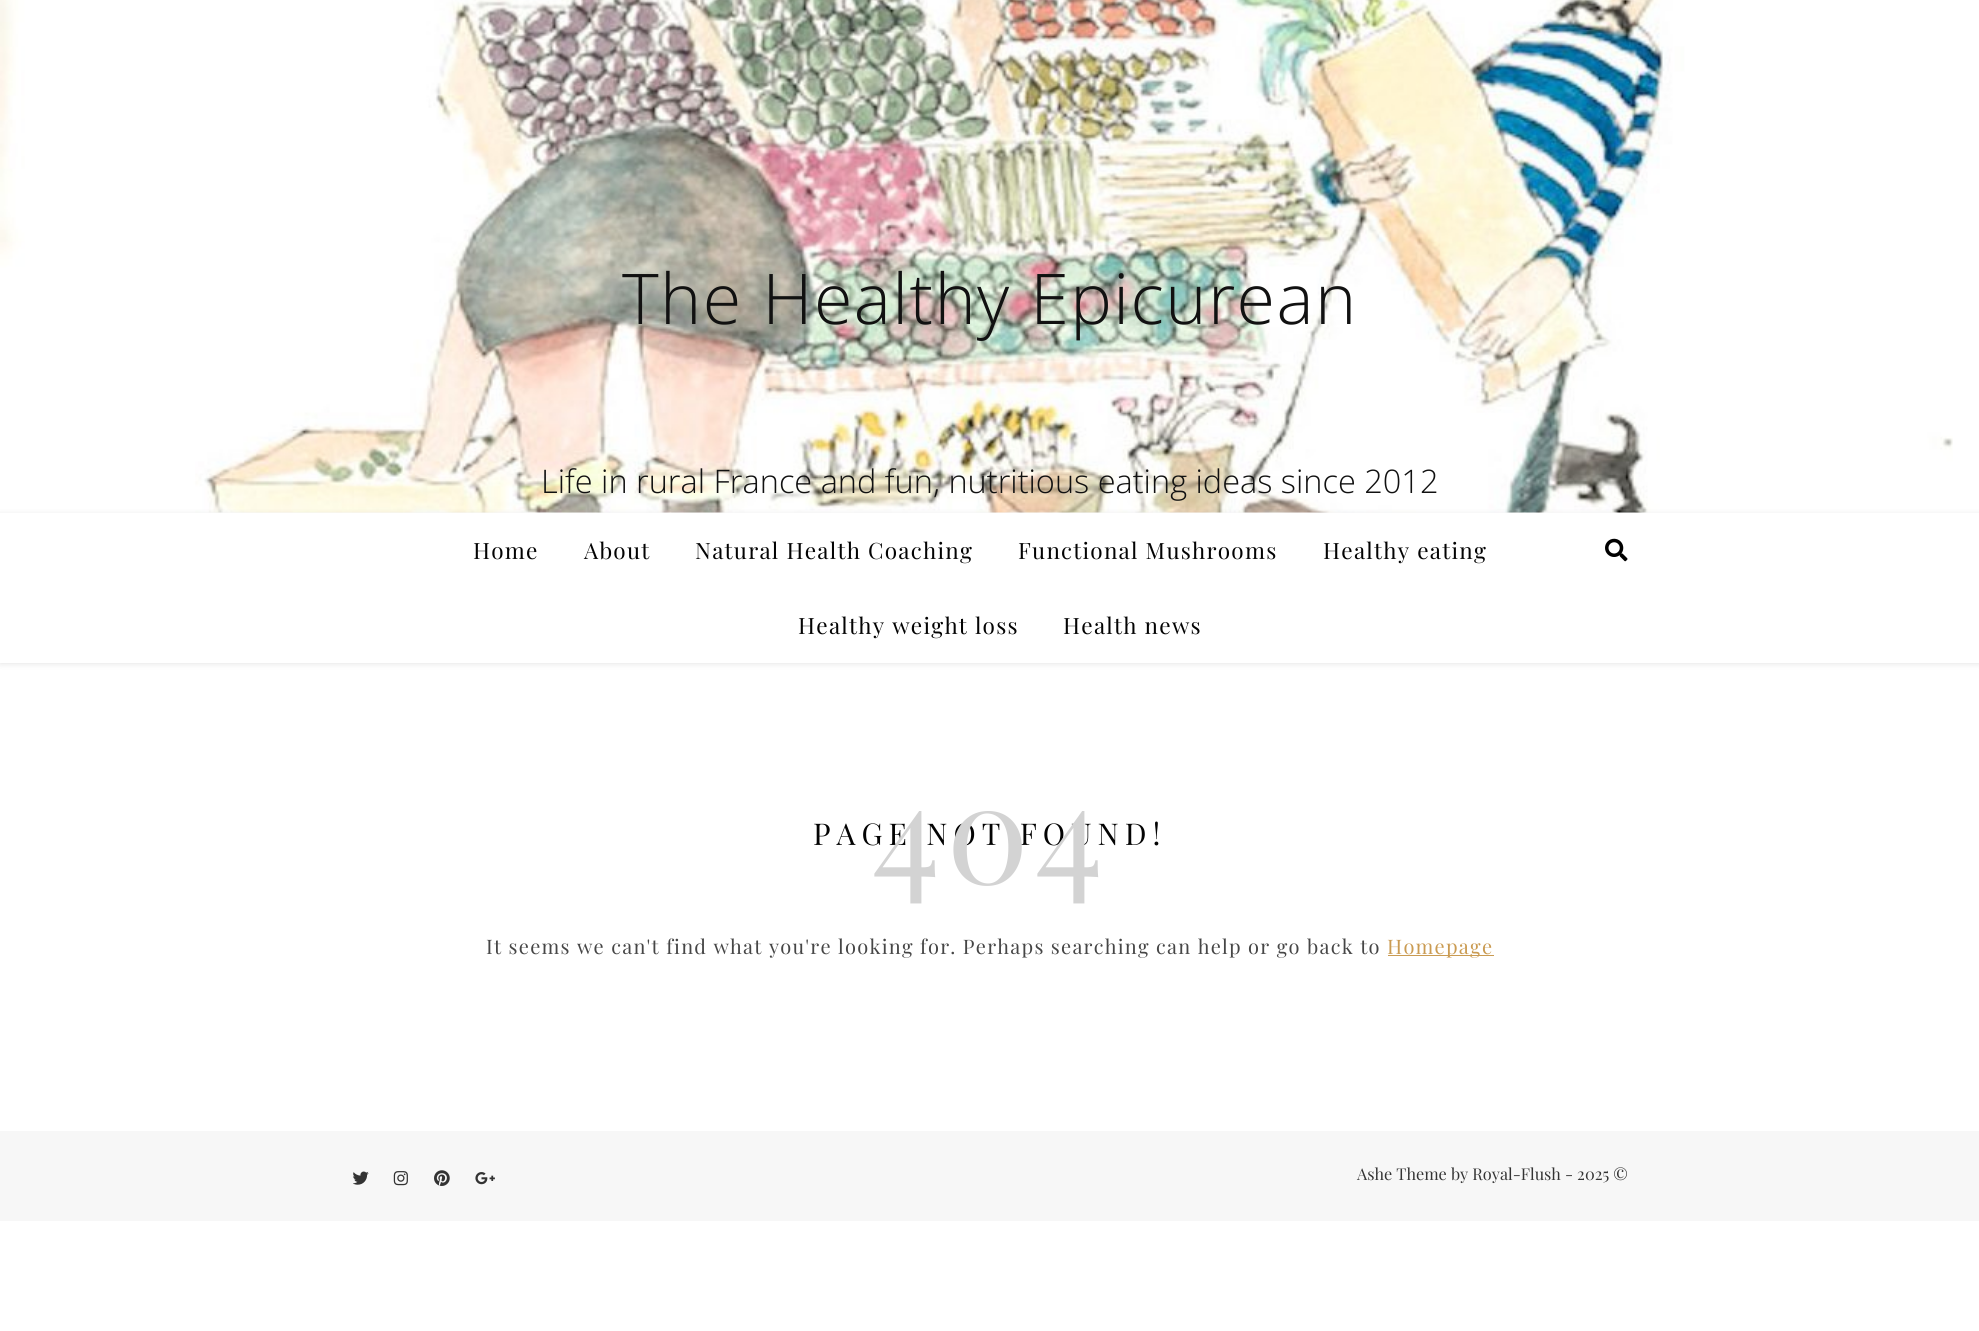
#include <cairo.h>
#include <math.h>
#include <stddef.h>


static void spaced_text(cairo_t *cr, double x, double y, const char *s, double letter, double word) {
    cairo_move_to(cr, x, y);
    while (*s) {
        char ch[5] = {0};
        int n = 0;
        do ch[n++] = *s++; while ((*s & 0xC0) == 0x80);
        cairo_show_text(cr, ch);
        cairo_rel_move_to(cr, letter + word * (*ch == ' '), 0);
    }
}

static void round_rect(cairo_t *cr, double x, double y, double w, double h, double r) {
    cairo_new_sub_path(cr);
    cairo_arc(cr, x + w - r, y + h - r, r, 0, M_PI / 2);
    cairo_arc(cr, x + r, y + h - r, r, M_PI / 2, M_PI);
    cairo_arc(cr, x + r, y + r, r, M_PI, 1.5 * M_PI);
    cairo_arc(cr, x + w - r, y + r, r, 1.5 * M_PI, 2 * M_PI);
    cairo_close_path(cr);
}

static void shadow(cairo_t *cr, double x, double y, double w, double h, double r, double blur, double alpha) {
    cairo_push_group_with_content(cr, CAIRO_CONTENT_ALPHA);
    cairo_set_operator(cr, CAIRO_OPERATOR_SOURCE);
    for (int i = 15; i >= -15 && fmin(w, h) + blur * i / 3 > 0; i -= 2) {
        double e = blur * i / 6;
        cairo_set_source_rgba(cr, 0, 0, 0, alpha * erfc((i - 1) / 8.5) / 2);
        round_rect(cr, x - e, y - e, w + 2 * e, h + 2 * e, fmax(0, fmin(r + e + blur * .6, fmin(w, h) / 2 + e)));
        cairo_fill(cr);
    }
    cairo_pattern_t *soft = cairo_pop_group(cr);
    cairo_mask(cr, soft);
    cairo_pattern_destroy(soft);
}

static void picture(cairo_t *cr, const char *path, double x, double y, double w, double h) {
    cairo_surface_t *image = cairo_image_surface_create_from_png(path);
    cairo_save(cr);
    cairo_set_source_surface(cr, image, x, y);
    cairo_rectangle(cr, x, y, w, h);
    cairo_fill(cr);
    cairo_restore(cr);
    cairo_surface_destroy(image);
}

int main(void) {
    cairo_surface_t *surface = cairo_image_surface_create(CAIRO_FORMAT_RGB24, 1979, 1331);
    cairo_t *cr = cairo_create(surface);
    cairo_font_options_t *options = cairo_font_options_create();
    cairo_font_options_set_hint_metrics(options, CAIRO_HINT_METRICS_OFF);
    cairo_font_options_set_hint_style(options, CAIRO_HINT_STYLE_NONE);
    cairo_set_font_options(cr, options);
    cairo_set_miter_limit(cr, 4);
    cairo_set_source_rgb(cr, 1, 1, 1);
    cairo_paint(cr);
    picture(cr, "img1.png", 0, 0, 1953, 513);
    cairo_select_font_face(cr, "Open Sans Light", CAIRO_FONT_SLANT_NORMAL, CAIRO_FONT_WEIGHT_NORMAL);
    cairo_set_font_size(cr, 70);
    cairo_set_source_rgb(cr, 0.067, 0.067, 0.067);
    spaced_text(cr, 622, 324, "The Healthy Epicurean", 1.4, 0);
    cairo_set_font_size(cr, 32.5);
    cairo_move_to(cr, 541, 493);
    cairo_show_text(cr, "Life in rural France and fun, nutritious eating ideas since 2012");
    cairo_set_source_rgb(cr, 0, 0, 0);
    shadow(cr, 0, 514, 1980, 150, 0, 3, 0.1);
    cairo_set_source_rgb(cr, 1, 1, 1);
    cairo_rectangle(cr, 0, 513, 1979, 150);
    cairo_fill(cr);
    cairo_select_font_face(cr, "Playfair Display", CAIRO_FONT_SLANT_NORMAL, CAIRO_FONT_WEIGHT_NORMAL);
    cairo_set_font_size(cr, 22.5);
    cairo_set_source_rgb(cr, 0.012, 0.012, 0.012);
    spaced_text(cr, 473, 559, "Home", 1.25, 0);
    spaced_text(cr, 584, 559, "About", 1.25, 0);
    spaced_text(cr, 695, 559, "Natural Health Coaching", 1.25, 0);
    spaced_text(cr, 1018, 559, "Functional Mushrooms", 1.25, 0);
    spaced_text(cr, 1323, 559, "Healthy eating", 1.25, 0);
    spaced_text(cr, 798, 634, "Healthy weight loss", 1.25, 0);
    spaced_text(cr, 1063, 634, "Health news", 1.25, 0);
    picture(cr, "img2.png", 1605, 538, 23, 24);
    cairo_set_font_size(cr, 30);
    spaced_text(cr, 813, 845, "PAGE NOT FOUND!", 6, 0);
    cairo_set_font_size(cr, 138);
    cairo_set_source_rgb(cr, 0.827, 0.827, 0.827);
    spaced_text(cr, 872, 884, "404", 6, 0);
    cairo_set_font_size(cr, 20);
    cairo_set_source_rgb(cr, 0.275, 0.275, 0.275);
    spaced_text(cr, 486, 954, "It seems we can't find what you're looking for. Perhaps searching can help or go back to", 1.25, 0);
    cairo_set_source_rgb(cr, 0.792, 0.608, 0.322);
    cairo_rectangle(cr, 1388, 955, 106, 1);
    cairo_fill(cr);
    spaced_text(cr, 1387, 954, "Homepage", 1.25, 0);
    cairo_set_source_rgb(cr, 0.965, 0.965, 0.965);
    cairo_rectangle(cr, 0, 1131, 1979, 90);
    cairo_fill(cr);
    picture(cr, "img3.png", 353, 1171, 16, 14);
    picture(cr, "img4.png", 393, 1171, 15, 15);
    picture(cr, "img5.png", 434, 1170, 16, 16);
    picture(cr, "img6.png", 475, 1172, 20, 13);
    cairo_set_font_size(cr, 16.25);
    cairo_set_source_rgb(cr, 0.2, 0.2, 0.2);
    cairo_move_to(cr, 1357, 1180);
    cairo_show_text(cr, "Ashe Theme by Royal-Flush - 2025 ©");
    cairo_surface_write_to_png(surface, "page.png");
    cairo_font_options_destroy(options);
    cairo_destroy(cr);
    cairo_surface_destroy(surface);
    return 0;
}
